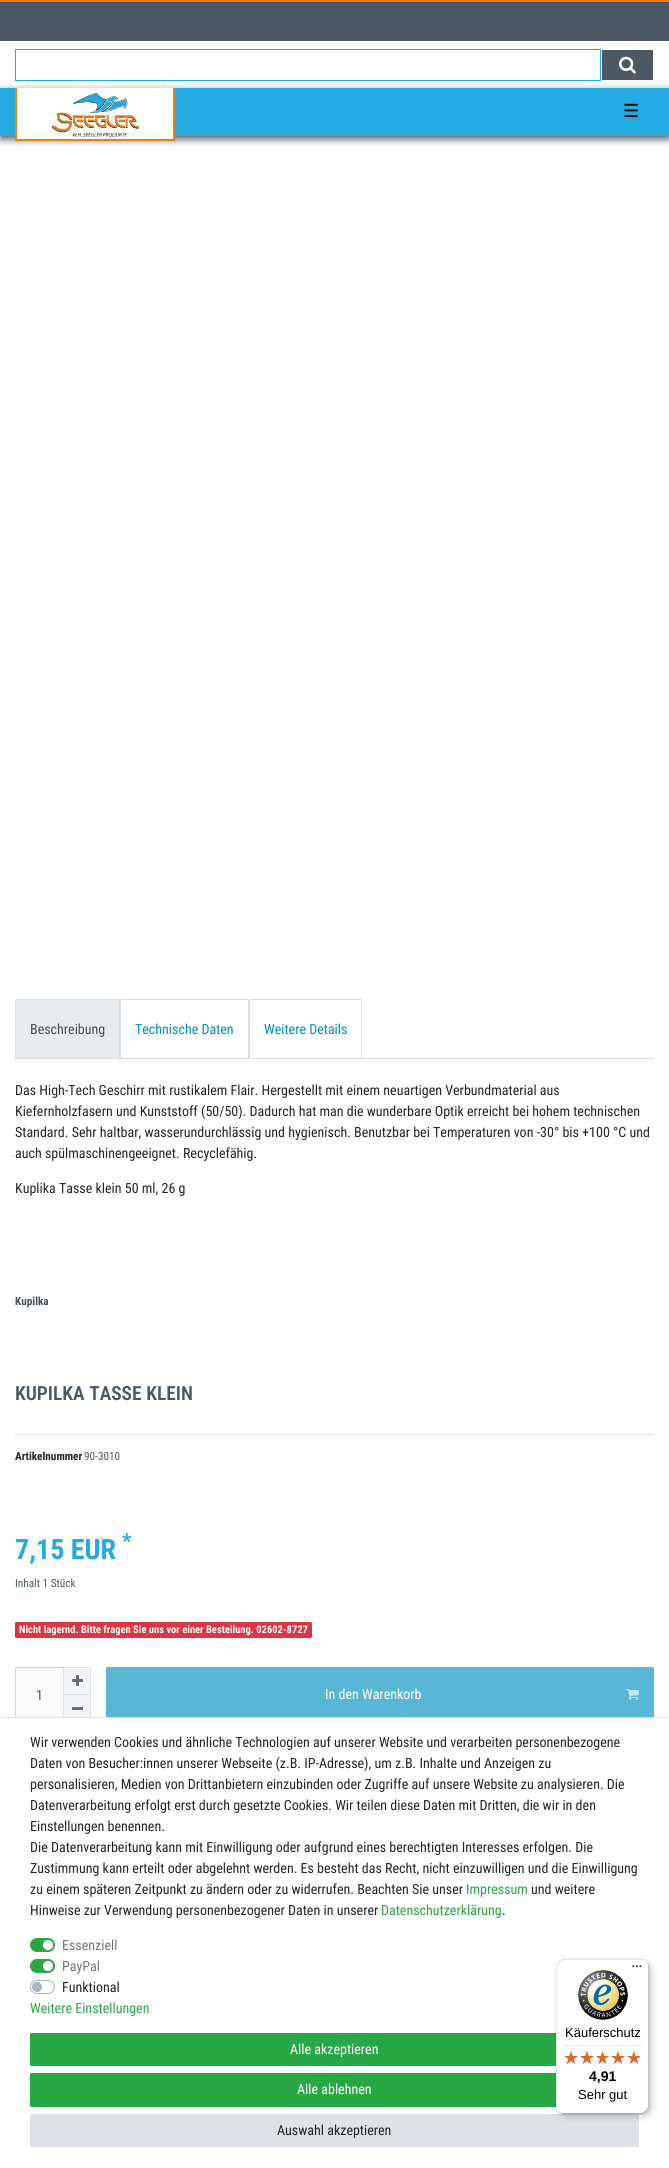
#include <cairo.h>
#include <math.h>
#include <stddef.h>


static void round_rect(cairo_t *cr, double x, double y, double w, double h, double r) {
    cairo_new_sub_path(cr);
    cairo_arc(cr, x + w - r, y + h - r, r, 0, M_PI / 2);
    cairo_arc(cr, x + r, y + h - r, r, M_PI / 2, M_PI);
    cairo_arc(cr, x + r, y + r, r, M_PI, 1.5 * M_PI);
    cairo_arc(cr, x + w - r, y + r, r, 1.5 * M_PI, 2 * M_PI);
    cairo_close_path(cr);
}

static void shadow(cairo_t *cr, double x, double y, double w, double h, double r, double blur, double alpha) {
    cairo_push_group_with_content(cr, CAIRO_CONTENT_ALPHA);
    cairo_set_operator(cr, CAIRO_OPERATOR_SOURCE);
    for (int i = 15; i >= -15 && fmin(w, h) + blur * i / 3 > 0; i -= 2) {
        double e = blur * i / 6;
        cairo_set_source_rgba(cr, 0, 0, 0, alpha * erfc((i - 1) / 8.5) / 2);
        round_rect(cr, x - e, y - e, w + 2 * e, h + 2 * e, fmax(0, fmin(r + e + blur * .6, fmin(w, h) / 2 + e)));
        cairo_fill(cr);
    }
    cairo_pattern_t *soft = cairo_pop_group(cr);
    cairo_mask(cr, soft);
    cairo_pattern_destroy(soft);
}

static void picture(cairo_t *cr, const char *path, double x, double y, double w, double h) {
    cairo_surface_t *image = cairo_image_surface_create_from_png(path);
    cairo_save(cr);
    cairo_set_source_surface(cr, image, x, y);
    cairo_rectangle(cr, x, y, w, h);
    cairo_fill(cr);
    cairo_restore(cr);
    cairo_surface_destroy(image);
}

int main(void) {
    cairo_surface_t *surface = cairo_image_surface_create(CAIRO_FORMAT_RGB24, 669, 2168);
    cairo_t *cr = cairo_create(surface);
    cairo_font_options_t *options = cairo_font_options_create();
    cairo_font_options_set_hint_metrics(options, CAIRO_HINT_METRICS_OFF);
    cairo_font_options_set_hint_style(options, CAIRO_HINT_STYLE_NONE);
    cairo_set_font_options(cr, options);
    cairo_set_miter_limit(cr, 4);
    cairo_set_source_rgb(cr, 1, 1, 1);
    cairo_paint(cr);
    cairo_set_source_rgb(cr, 0.922, 0.494, 0.071);
    cairo_rectangle(cr, 0, 0, 669, 2);
    cairo_fill(cr);
    cairo_set_source_rgb(cr, 0.298, 0.345, 0.392);
    cairo_rectangle(cr, 0, 2, 669, 39);
    cairo_fill(cr);
    cairo_rectangle(cr, 15.5, 49.5, 585, 31);
    cairo_set_source_rgb(cr, 0.137, 0.667, 0.882);
    cairo_set_line_width(cr, 1);
    cairo_stroke(cr);
    cairo_set_source_rgb(cr, 0.298, 0.345, 0.392);
    cairo_rectangle(cr, 602, 50, 51, 30);
    cairo_fill(cr);
    picture(cr, "img1.png", 619, 56, 17, 18);
    cairo_set_source_rgb(cr, 0.298, 0.345, 0.392);
    shadow(cr, 0, 91, 669, 48, 0, 4, 1);
    cairo_set_source_rgb(cr, 0.137, 0.667, 0.882);
    cairo_rectangle(cr, 0, 88, 669, 48);
    cairo_fill(cr);
    cairo_set_source_rgb(cr, 1, 1, 1);
    cairo_rectangle(cr, 17, 88, 156, 51);
    cairo_fill(cr);
    cairo_set_source_rgb(cr, 0.922, 0.494, 0.071);
    cairo_rectangle(cr, 173, 88, 2, 53);
    cairo_fill(cr);
    cairo_rectangle(cr, 15, 139, 160, 2);
    cairo_fill(cr);
    cairo_rectangle(cr, 15, 88, 2, 53);
    cairo_fill(cr);
    picture(cr, "img2.png", 51, 93, 88, 44);
    cairo_select_font_face(cr, "DejaVu Sans", CAIRO_FONT_SLANT_NORMAL, CAIRO_FONT_WEIGHT_NORMAL);
    cairo_set_font_size(cr, 18);
    cairo_set_source_rgb(cr, 0, 0, 0);
    cairo_move_to(cr, 623, 117);
    cairo_show_text(cr, "☰");
    cairo_set_source_rgb(cr, 0.867, 0.867, 0.867);
    cairo_rectangle(cr, 362, 1058, 292, 1);
    cairo_fill(cr);
    cairo_set_source_rgb(cr, 0.914, 0.925, 0.937);
    cairo_new_path(cr);
    cairo_move_to(cr, 16.5, 999.5);
    cairo_line_to(cr, 118.5, 999.5);
    cairo_curve_to(cr, 119, 999.5, 119.5, 1000, 119.5, 1000.5);
    cairo_line_to(cr, 119.5, 1058.5);
    cairo_line_to(cr, 15.5, 1058.5);
    cairo_line_to(cr, 15.5, 1000.5);
    cairo_curve_to(cr, 15.5, 1000, 16, 999.5, 16.5, 999.5);
    cairo_close_path(cr);
    cairo_fill_preserve(cr);
    cairo_set_source_rgb(cr, 0.867, 0.867, 0.867);
    cairo_stroke(cr);
    cairo_select_font_face(cr, "Roboto Condensed", CAIRO_FONT_SLANT_NORMAL, CAIRO_FONT_WEIGHT_NORMAL);
    cairo_set_font_size(cr, 14);
    cairo_set_source_rgb(cr, 0.286, 0.314, 0.341);
    cairo_move_to(cr, 30, 1034);
    cairo_show_text(cr, "Beschreibung");
    cairo_new_path(cr);
    cairo_move_to(cr, 121.5, 999.5);
    cairo_line_to(cr, 247.5, 999.5);
    cairo_curve_to(cr, 248, 999.5, 248.5, 1000, 248.5, 1000.5);
    cairo_line_to(cr, 248.5, 1058.5);
    cairo_line_to(cr, 120.5, 1058.5);
    cairo_line_to(cr, 120.5, 1000.5);
    cairo_curve_to(cr, 120.5, 1000, 121, 999.5, 121.5, 999.5);
    cairo_close_path(cr);
    cairo_set_source_rgb(cr, 0.867, 0.867, 0.867);
    cairo_stroke(cr);
    cairo_set_source_rgb(cr, 0, 0.557, 0.741);
    cairo_move_to(cr, 135, 1034);
    cairo_show_text(cr, "Technische Daten");
    cairo_new_path(cr);
    cairo_move_to(cr, 250.5, 999.5);
    cairo_line_to(cr, 360.5, 999.5);
    cairo_curve_to(cr, 361, 999.5, 361.5, 1000, 361.5, 1000.5);
    cairo_line_to(cr, 361.5, 1058.5);
    cairo_line_to(cr, 249.5, 1058.5);
    cairo_line_to(cr, 249.5, 1000.5);
    cairo_curve_to(cr, 249.5, 1000, 250, 999.5, 250.5, 999.5);
    cairo_close_path(cr);
    cairo_set_source_rgb(cr, 0.867, 0.867, 0.867);
    cairo_stroke(cr);
    cairo_set_source_rgb(cr, 0, 0.557, 0.741);
    cairo_move_to(cr, 264, 1034);
    cairo_show_text(cr, "Weitere Details");
    cairo_set_source_rgb(cr, 0.145, 0.145, 0.145);
    cairo_move_to(cr, 15, 1095);
    cairo_show_text(cr, "Das High-Tech Geschirr mit rustikalem Flair. Hergestellt mit einem neuartigen Verbundmaterial aus");
    cairo_move_to(cr, 15, 1116);
    cairo_show_text(cr, "Kiefernholzfasern und Kunststoff (50/50). Dadurch hat man die wunderbare Optik erreicht bei hohem technischen");
    cairo_move_to(cr, 15, 1137);
    cairo_show_text(cr, "Standard. Sehr haltbar, wasserundurchlässig und hygienisch. Benutzbar bei Temperaturen von -30° bis +100 °C und");
    cairo_move_to(cr, 15, 1158);
    cairo_show_text(cr, "auch spülmaschinengeeignet. Recyclefähig.");
    cairo_move_to(cr, 15, 1193);
    cairo_show_text(cr, "Kuplika Tasse klein 50 ml, 26 g");
    cairo_select_font_face(cr, "Roboto Condensed", CAIRO_FONT_SLANT_NORMAL, CAIRO_FONT_WEIGHT_BOLD);
    cairo_set_font_size(cr, 11.25);
    cairo_set_source_rgb(cr, 0.286, 0.314, 0.341);
    cairo_move_to(cr, 15, 1305);
    cairo_show_text(cr, "Kupilka");
    cairo_select_font_face(cr, "Roboto Condensed SemiBold", CAIRO_FONT_SLANT_NORMAL, CAIRO_FONT_WEIGHT_NORMAL);
    cairo_set_font_size(cr, 19.5);
    cairo_set_source_rgb(cr, 0.298, 0.345, 0.392);
    cairo_move_to(cr, 15, 1400);
    cairo_show_text(cr, "KUPILKA TASSE KLEIN");
    cairo_set_source_rgb(cr, 0.871, 0.886, 0.902);
    cairo_rectangle(cr, 15, 1434, 639, 1);
    cairo_fill(cr);
    cairo_select_font_face(cr, "Roboto Condensed", CAIRO_FONT_SLANT_NORMAL, CAIRO_FONT_WEIGHT_BOLD);
    cairo_set_font_size(cr, 11.25);
    cairo_set_source_rgb(cr, 0.145, 0.145, 0.145);
    cairo_move_to(cr, 15, 1460);
    cairo_show_text(cr, "Artikelnummer");
    cairo_select_font_face(cr, "Roboto Condensed", CAIRO_FONT_SLANT_NORMAL, CAIRO_FONT_WEIGHT_NORMAL);
    cairo_set_source_rgb(cr, 0.298, 0.345, 0.392);
    cairo_move_to(cr, 84, 1460);
    cairo_show_text(cr, "90-3010");
    cairo_select_font_face(cr, "Roboto Condensed", CAIRO_FONT_SLANT_NORMAL, CAIRO_FONT_WEIGHT_BOLD);
    cairo_set_font_size(cr, 21);
    cairo_set_source_rgb(cr, 0.137, 0.667, 0.882);
    cairo_move_to(cr, 122, 1548);
    cairo_show_text(cr, "*");
    cairo_set_font_size(cr, 28);
    cairo_move_to(cr, 15, 1559);
    cairo_show_text(cr, "7,15 EUR");
    cairo_select_font_face(cr, "Roboto Condensed", CAIRO_FONT_SLANT_NORMAL, CAIRO_FONT_WEIGHT_NORMAL);
    cairo_set_font_size(cr, 11.25);
    cairo_set_source_rgb(cr, 0.298, 0.345, 0.392);
    cairo_move_to(cr, 15, 1587);
    cairo_show_text(cr, "Inhalt 1 Stück");
    cairo_set_source_rgb(cr, 0.863, 0.208, 0.271);
    round_rect(cr, 15, 1622, 297, 16, 1.5);
    cairo_fill(cr);
    cairo_select_font_face(cr, "Roboto Condensed", CAIRO_FONT_SLANT_NORMAL, CAIRO_FONT_WEIGHT_BOLD);
    cairo_set_font_size(cr, 10.5);
    cairo_set_source_rgb(cr, 1, 1, 1);
    cairo_move_to(cr, 19, 1633);
    cairo_show_text(cr, "Nicht lagernd. Bitte fragen Sie uns vor einer Bestellung. 02602-8727");
    cairo_set_source_rgb(cr, 0.98, 0.98, 0.98);
    cairo_rectangle(cr, 16, 1668, 47, 49);
    cairo_fill(cr);
    cairo_set_source_rgb(cr, 0.808, 0.831, 0.855);
    cairo_rectangle(cr, 15, 1667, 48, 1);
    cairo_fill(cr);
    cairo_rectangle(cr, 15, 1667, 1, 56);
    cairo_fill(cr);
    cairo_select_font_face(cr, "Roboto Condensed", CAIRO_FONT_SLANT_NORMAL, CAIRO_FONT_WEIGHT_NORMAL);
    cairo_set_font_size(cr, 14);
    cairo_set_source_rgb(cr, 0.329, 0.329, 0.329);
    cairo_move_to(cr, 36, 1700);
    cairo_show_text(cr, "1");
    cairo_set_source_rgb(cr, 0.945, 0.953, 0.961);
    cairo_new_path(cr);
    cairo_move_to(cr, 63.5, 1667.5);
    cairo_line_to(cr, 89.5, 1667.5);
    cairo_curve_to(cr, 90, 1667.5, 90.5, 1668, 90.5, 1668.5);
    cairo_line_to(cr, 90.5, 1694.5);
    cairo_line_to(cr, 63.5, 1694.5);
    cairo_close_path(cr);
    cairo_fill_preserve(cr);
    cairo_set_source_rgb(cr, 0.875, 0.89, 0.906);
    cairo_stroke(cr);
    picture(cr, "img3.png", 72, 1675, 11, 11);
    cairo_set_source_rgb(cr, 0.945, 0.953, 0.961);
    cairo_rectangle(cr, 64, 1695, 26, 22);
    cairo_fill(cr);
    cairo_set_source_rgb(cr, 0.875, 0.89, 0.906);
    cairo_rectangle(cr, 90, 1695, 1, 27);
    cairo_fill(cr);
    cairo_rectangle(cr, 63, 1695, 1, 28);
    cairo_fill(cr);
    cairo_set_source_rgb(cr, 0.416, 0.427, 0.439);
    cairo_rectangle(cr, 72, 1707, 11, 3);
    cairo_fill(cr);
    cairo_set_source_rgb(cr, 0.349, 0.714, 0.831);
    round_rect(cr, 106.5, 1667.5, 547, 55, 1);
    cairo_fill_preserve(cr);
    cairo_stroke(cr);
    cairo_set_source_rgb(cr, 1, 1, 1);
    cairo_move_to(cr, 325, 1699);
    cairo_show_text(cr, "In den Warenkorb");
    picture(cr, "img4.png", 626, 1689, 13, 11);
    cairo_rectangle(cr, 15, 1718, 639, 5);
    cairo_fill(cr);
    cairo_set_source_rgb(cr, 0.871, 0.886, 0.902);
    cairo_rectangle(cr, 0, 1717, 669, 1);
    cairo_fill(cr);
    cairo_set_source_rgb(cr, 0.145, 0.145, 0.145);
    cairo_move_to(cr, 30, 1747);
    cairo_show_text(cr, "Wir verwenden Cookies und ähnliche Technologien auf unserer Website und verarbeiten personenbezogene");
    cairo_move_to(cr, 30, 1768);
    cairo_show_text(cr, "Daten von Besucher:innen unserer Webseite (z.B. IP-Adresse), um z.B. Inhalte und Anzeigen zu");
    cairo_move_to(cr, 30, 1789);
    cairo_show_text(cr, "personalisieren, Medien von Drittanbietern einzubinden oder Zugriffe auf unsere Website zu analysieren. Die");
    cairo_move_to(cr, 30, 1810);
    cairo_show_text(cr, "Datenverarbeitung erfolgt erst durch gesetzte Cookies. Wir teilen diese Daten mit Dritten, die wir in den");
    cairo_move_to(cr, 30, 1831);
    cairo_show_text(cr, "Einstellungen benennen.");
    cairo_move_to(cr, 30, 1852);
    cairo_show_text(cr, "Die Datenverarbeitung kann mit Einwilligung oder aufgrund eines berechtigten Interesses erfolgen. Die");
    cairo_move_to(cr, 30, 1873);
    cairo_show_text(cr, "Zustimmung kann erteilt oder abgelehnt werden. Es besteht das Recht, nicht einzuwilligen und die Einwilligung");
    cairo_move_to(cr, 30, 1894);
    cairo_show_text(cr, "zu einem späteren Zeitpunkt zu ändern oder zu widerrufen. Beachten Sie unser");
    cairo_set_source_rgb(cr, 0.157, 0.655, 0.271);
    cairo_move_to(cr, 466, 1894);
    cairo_show_text(cr, "Impressum");
    cairo_set_source_rgb(cr, 0.145, 0.145, 0.145);
    cairo_move_to(cr, 531, 1894);
    cairo_show_text(cr, "und weitere");
    cairo_move_to(cr, 30, 1915);
    cairo_show_text(cr, "Hinweise zur Verwendung personenbezogener Daten in unserer");
    cairo_set_source_rgb(cr, 0.157, 0.655, 0.271);
    cairo_move_to(cr, 381, 1915);
    cairo_show_text(cr, "Datenschutzerklärung");
    cairo_set_source_rgb(cr, 0.145, 0.145, 0.145);
    cairo_move_to(cr, 502, 1915);
    cairo_show_text(cr, ".");
    cairo_set_source_rgb(cr, 0.157, 0.655, 0.271);
    round_rect(cr, 30.5, 1938.5, 24, 13, 6.5);
    cairo_fill_preserve(cr);
    cairo_stroke(cr);
    cairo_set_source_rgb(cr, 0.463, 0.463, 0.463);
    cairo_move_to(cr, 62, 1950);
    cairo_show_text(cr, "Essenziell");
    cairo_set_source_rgb(cr, 1, 1, 1);
    cairo_new_path(cr);
    cairo_arc(cr, 48, 1945, 5, 0, 2 * M_PI);
    cairo_fill(cr);
    cairo_set_source_rgb(cr, 0.157, 0.655, 0.271);
    round_rect(cr, 30.5, 1959.5, 24, 13, 6.5);
    cairo_fill_preserve(cr);
    cairo_stroke(cr);
    cairo_set_source_rgb(cr, 0.463, 0.463, 0.463);
    cairo_move_to(cr, 62, 1971);
    cairo_show_text(cr, "PayPal");
    cairo_set_source_rgb(cr, 1, 1, 1);
    cairo_new_path(cr);
    cairo_arc(cr, 48, 1966, 5, 0, 2 * M_PI);
    cairo_fill(cr);
    round_rect(cr, 30.5, 1980.5, 24, 13, 6.5);
    cairo_set_source_rgb(cr, 0.678, 0.71, 0.741);
    cairo_stroke(cr);
    cairo_set_source_rgb(cr, 0.145, 0.145, 0.145);
    cairo_move_to(cr, 62, 1992);
    cairo_show_text(cr, "Funktional");
    cairo_set_source_rgb(cr, 0.678, 0.71, 0.741);
    cairo_new_path(cr);
    cairo_arc(cr, 37, 1987, 5, 0, 2 * M_PI);
    cairo_fill(cr);
    cairo_set_source_rgb(cr, 0.157, 0.655, 0.271);
    cairo_move_to(cr, 30, 2013);
    cairo_show_text(cr, "Weitere Einstellungen");
    round_rect(cr, 30.5, 2033.5, 608, 32, 1);
    cairo_fill_preserve(cr);
    cairo_stroke(cr);
    cairo_set_source_rgb(cr, 1, 1, 1);
    cairo_move_to(cr, 290, 2054);
    cairo_show_text(cr, "Alle akzeptieren");
    cairo_set_source_rgb(cr, 0.157, 0.655, 0.271);
    round_rect(cr, 30.5, 2073.5, 608, 33, 1);
    cairo_fill_preserve(cr);
    cairo_stroke(cr);
    cairo_set_source_rgb(cr, 1, 1, 1);
    cairo_move_to(cr, 297, 2094);
    cairo_show_text(cr, "Alle ablehnen");
    cairo_set_source_rgb(cr, 0.871, 0.886, 0.902);
    round_rect(cr, 30.5, 2114.5, 608, 32, 1);
    cairo_fill_preserve(cr);
    cairo_stroke(cr);
    cairo_set_source_rgb(cr, 0.145, 0.145, 0.145);
    cairo_move_to(cr, 277, 2135);
    cairo_show_text(cr, "Auswahl akzeptieren");
    cairo_set_source_rgb(cr, 0, 0, 0);
    shadow(cr, 559, 1962, 93, 155, 8, 4, 0.15);
    shadow(cr, 557, 1960, 93, 155, 8, 1, 0.15);
    cairo_set_source_rgb(cr, 1, 1, 1);
    round_rect(cr, 556, 1959, 93, 155, 8);
    cairo_fill(cr);
    cairo_set_source_rgba(cr, 0, 0, 0, 0.1);
    cairo_new_path(cr);
    cairo_move_to(cr, 565, 1960);
    cairo_line_to(cr, 642, 1960);
    cairo_curve_to(cr, 644, 1960, 646, 1961, 648, 1963);
    cairo_curve_to(cr, 646, 1961, 644, 1959, 641, 1959);
    cairo_line_to(cr, 564, 1959);
    cairo_curve_to(cr, 560, 1959, 556, 1963, 556, 1967);
    cairo_line_to(cr, 556, 2106);
    cairo_curve_to(cr, 556, 2109, 558, 2111, 560, 2113);
    cairo_curve_to(cr, 558, 2111, 557, 2109, 557, 2107);
    cairo_line_to(cr, 557, 1968);
    cairo_curve_to(cr, 557, 1964, 561, 1960, 565, 1960);
    cairo_close_path(cr);
    cairo_fill(cr);
    cairo_set_source_rgb(cr, 0.8, 0.8, 0.8);
    cairo_new_path(cr);
    cairo_move_to(cr, 557, 2110);
    cairo_curve_to(cr, 559, 2112, 561, 2114, 564, 2114);
    cairo_line_to(cr, 641, 2114);
    cairo_curve_to(cr, 645, 2114, 649, 2110, 649, 2106);
    cairo_line_to(cr, 649, 1967);
    cairo_curve_to(cr, 649, 1964, 647, 1962, 645, 1960);
    cairo_curve_to(cr, 647, 1962, 648, 1964, 648, 1966);
    cairo_line_to(cr, 648, 2105);
    cairo_curve_to(cr, 648, 2109, 644, 2113, 640, 2113);
    cairo_line_to(cr, 563, 2113);
    cairo_curve_to(cr, 561, 2113, 559, 2112, 557, 2110);
    cairo_close_path(cr);
    cairo_fill(cr);
    cairo_set_source_rgba(cr, 0.196, 0.196, 0.196, 0.2);
    cairo_new_path(cr);
    cairo_move_to(cr, 558, 2111);
    cairo_curve_to(cr, 559, 2113, 562, 2114, 564, 2114);
    cairo_line_to(cr, 641, 2114);
    cairo_curve_to(cr, 645, 2114, 649, 2110, 649, 2106);
    cairo_line_to(cr, 649, 1967);
    cairo_curve_to(cr, 649, 1965, 648, 1962, 646, 1961);
    cairo_curve_to(cr, 647, 1962, 648, 1964, 648, 1966);
    cairo_line_to(cr, 648, 2105);
    cairo_curve_to(cr, 648, 2110, 645, 2113, 640, 2113);
    cairo_line_to(cr, 563, 2113);
    cairo_curve_to(cr, 561, 2113, 559, 2112, 558, 2111);
    cairo_close_path(cr);
    cairo_fill(cr);
    cairo_set_source_rgba(cr, 1, 1, 1, 0.3);
    cairo_new_path(cr);
    cairo_move_to(cr, 640, 2114);
    cairo_line_to(cr, 641, 2114);
    cairo_curve_to(cr, 645, 2114, 649, 2110, 649, 2106);
    cairo_line_to(cr, 649, 1967);
    cairo_curve_to(cr, 649, 1965, 648, 1962, 646, 1961);
    cairo_curve_to(cr, 647, 1962, 648, 1964, 648, 1966);
    cairo_line_to(cr, 648, 2106);
    cairo_curve_to(cr, 648, 2110, 645, 2114, 640, 2114);
    cairo_close_path(cr);
    cairo_fill(cr);
    picture(cr, "img5.png", 632, 1965, 10, 3);
    picture(cr, "img6.png", 578, 1970, 50, 50);
    cairo_select_font_face(cr, "Liberation Sans", CAIRO_FONT_SLANT_NORMAL, CAIRO_FONT_WEIGHT_NORMAL);
    cairo_set_font_size(cr, 13);
    cairo_set_source_rgb(cr, 0, 0, 0);
    cairo_move_to(cr, 565, 2037);
    cairo_show_text(cr, "Käuferschutz");
    cairo_set_source_rgb(cr, 0.898, 0.898, 0.898);
    cairo_rectangle(cr, 564, 2045, 77, 1);
    cairo_fill(cr);
    picture(cr, "img7.png", 564, 2051, 14, 13);
    picture(cr, "img7.png", 580, 2051, 14, 13);
    picture(cr, "img8.png", 596, 2051, 13, 13);
    picture(cr, "img7.png", 611, 2051, 14, 13);
    picture(cr, "img7.png", 627, 2051, 14, 13);
    picture(cr, "img9.png", 564, 2051, 14, 13);
    picture(cr, "img9.png", 580, 2051, 14, 13);
    picture(cr, "img10.png", 596, 2051, 13, 13);
    picture(cr, "img9.png", 611, 2051, 14, 13);
    picture(cr, "img11.png", 627, 2051, 13, 13);
    cairo_select_font_face(cr, "Liberation Sans", CAIRO_FONT_SLANT_NORMAL, CAIRO_FONT_WEIGHT_BOLD);
    cairo_set_font_size(cr, 14);
    cairo_set_source_rgb(cr, 0, 0, 0);
    cairo_move_to(cr, 589, 2081);
    cairo_show_text(cr, "4,91");
    cairo_select_font_face(cr, "Liberation Sans", CAIRO_FONT_SLANT_NORMAL, CAIRO_FONT_WEIGHT_NORMAL);
    cairo_set_font_size(cr, 13);
    cairo_move_to(cr, 578, 2099);
    cairo_show_text(cr, "Sehr gut");
    cairo_surface_write_to_png(surface, "page.png");
    cairo_font_options_destroy(options);
    cairo_destroy(cr);
    cairo_surface_destroy(surface);
    return 0;
}
